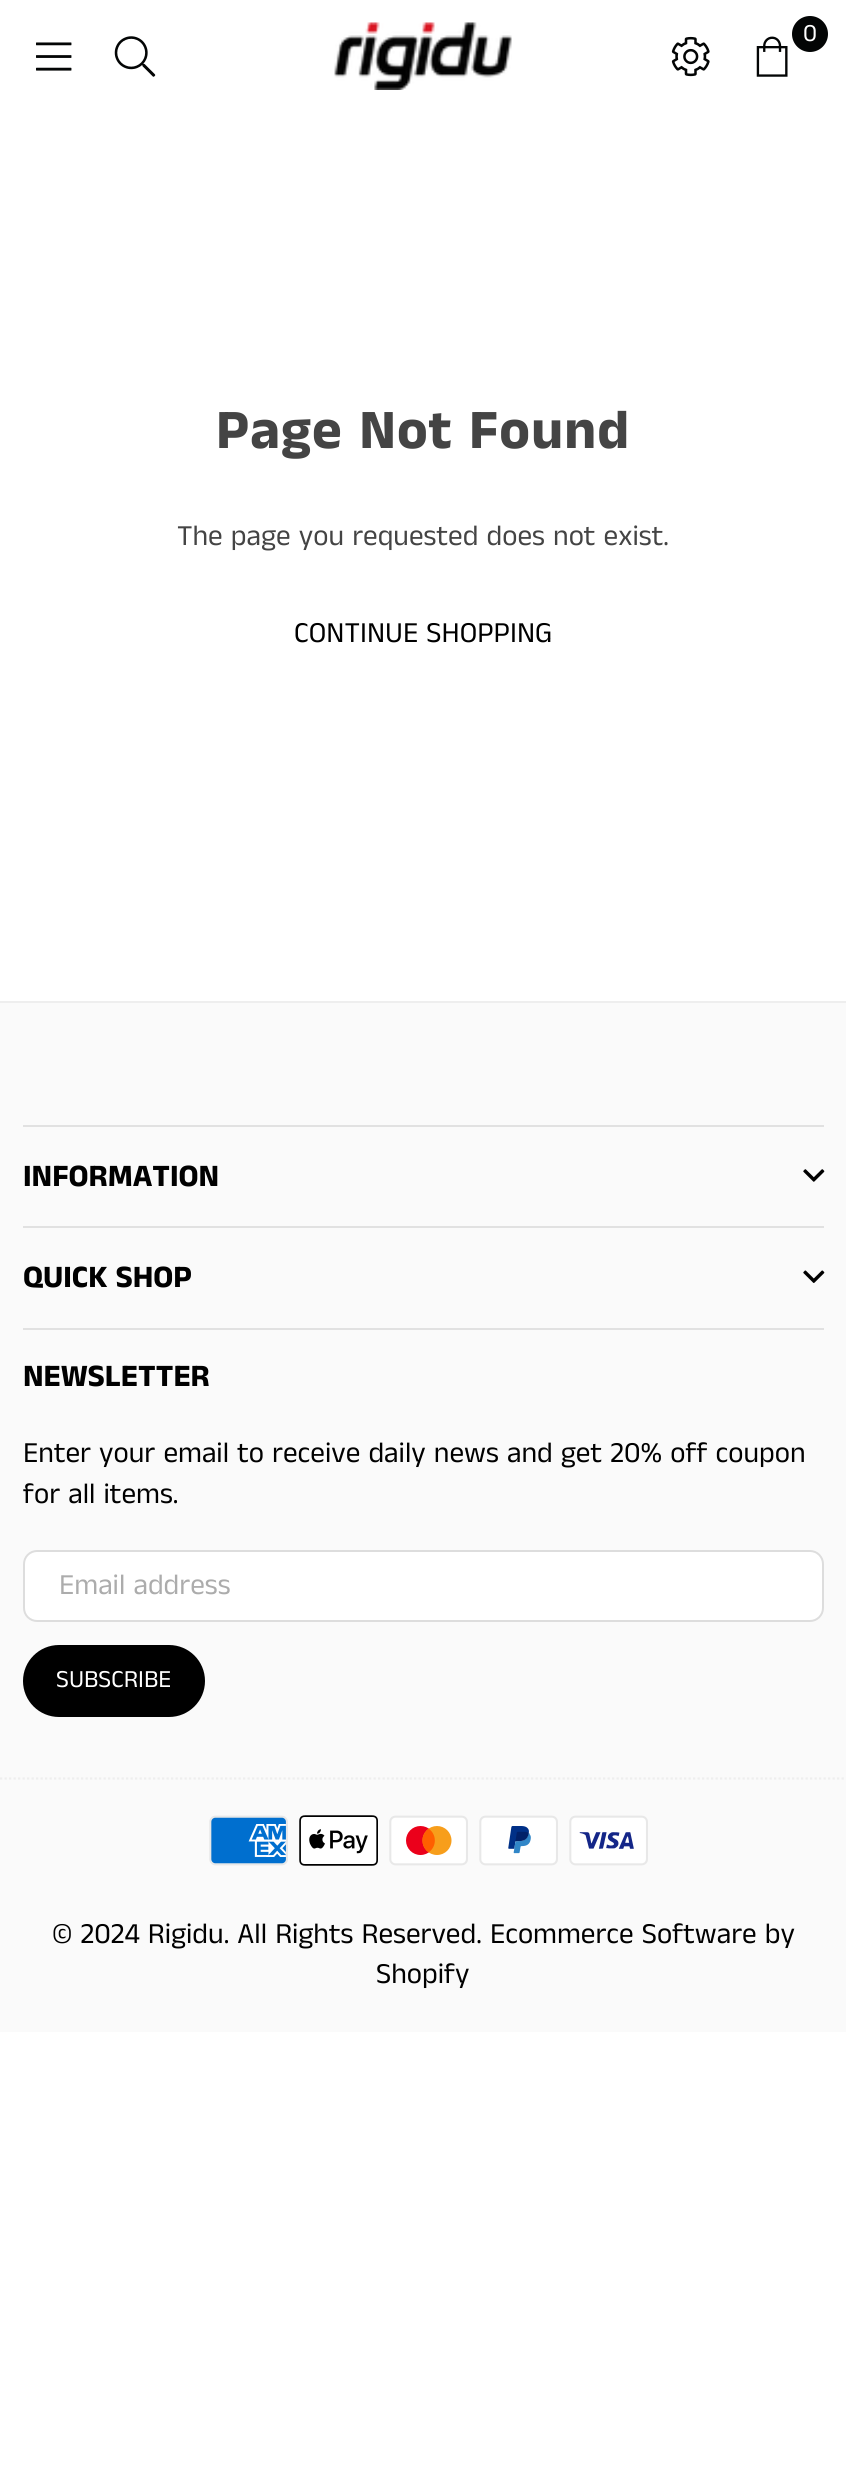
#include <cairo.h>
#include <math.h>
#include <stddef.h>


static void spaced_text(cairo_t *cr, double x, double y, const char *s, double letter, double word) {
    cairo_move_to(cr, x, y);
    while (*s) {
        char ch[5] = {0};
        int n = 0;
        do ch[n++] = *s++; while ((*s & 0xC0) == 0x80);
        cairo_show_text(cr, ch);
        cairo_rel_move_to(cr, letter + word * (*ch == ' '), 0);
    }
}

static void round_rect(cairo_t *cr, double x, double y, double w, double h, double r) {
    cairo_new_sub_path(cr);
    cairo_arc(cr, x + w - r, y + h - r, r, 0, M_PI / 2);
    cairo_arc(cr, x + r, y + h - r, r, M_PI / 2, M_PI);
    cairo_arc(cr, x + r, y + r, r, M_PI, 1.5 * M_PI);
    cairo_arc(cr, x + w - r, y + r, r, 1.5 * M_PI, 2 * M_PI);
    cairo_close_path(cr);
}

static void picture(cairo_t *cr, const char *path, double x, double y, double w, double h) {
    cairo_surface_t *image = cairo_image_surface_create_from_png(path);
    cairo_save(cr);
    cairo_set_source_surface(cr, image, x, y);
    cairo_rectangle(cr, x, y, w, h);
    cairo_fill(cr);
    cairo_restore(cr);
    cairo_surface_destroy(image);
}

int main(void) {
    cairo_surface_t *surface = cairo_image_surface_create(CAIRO_FORMAT_RGB24, 846, 2489);
    cairo_t *cr = cairo_create(surface);
    cairo_font_options_t *options = cairo_font_options_create();
    cairo_font_options_set_hint_metrics(options, CAIRO_HINT_METRICS_OFF);
    cairo_font_options_set_hint_style(options, CAIRO_HINT_STYLE_NONE);
    cairo_set_font_options(cr, options);
    cairo_set_miter_limit(cr, 4);
    cairo_set_source_rgb(cr, 1, 1, 1);
    cairo_paint(cr);
    picture(cr, "img1.png", 334, 22, 178, 68);
    cairo_set_source_rgb(cr, 0.012, 0.02, 0.02);
    cairo_arc(cr, 810, 34, 18, 0, 2 * M_PI);
    cairo_fill(cr);
    cairo_select_font_face(cr, "Anek Tamil", CAIRO_FONT_SLANT_NORMAL, CAIRO_FONT_WEIGHT_NORMAL);
    cairo_set_font_size(cr, 24.75);
    cairo_set_source_rgb(cr, 1, 1, 1);
    cairo_move_to(cr, 803, 41);
    cairo_show_text(cr, "0");
    picture(cr, "img2.png", 756, 36, 32, 41);
    picture(cr, "img3.png", 671, 36, 39, 41);
    picture(cr, "img4.png", 36, 42, 36, 29);
    picture(cr, "img5.png", 114, 36, 42, 41);
    cairo_select_font_face(cr, "Anek Tamil", CAIRO_FONT_SLANT_NORMAL, CAIRO_FONT_WEIGHT_BOLD);
    cairo_set_font_size(cr, 56.25);
    cairo_set_source_rgb(cr, 0.267, 0.267, 0.267);
    spaced_text(cr, 216, 448, "Page Not Found", 1.1, 0);
    cairo_select_font_face(cr, "Anek Tamil", CAIRO_FONT_SLANT_NORMAL, CAIRO_FONT_WEIGHT_NORMAL);
    cairo_set_font_size(cr, 29.25);
    cairo_move_to(cr, 177, 545);
    cairo_show_text(cr, "The page you requested does not exist.");
    cairo_set_source_rgb(cr, 0, 0, 0);
    cairo_move_to(cr, 294, 642);
    cairo_show_text(cr, "CONTINUE SHOPPING");
    cairo_set_source_rgb(cr, 0.98, 0.98, 0.98);
    cairo_rectangle(cr, 0, 1003, 846, 1029);
    cairo_fill(cr);
    cairo_set_source_rgb(cr, 0.933, 0.933, 0.933);
    cairo_rectangle(cr, 0, 1001, 846, 2);
    cairo_fill(cr);
    cairo_set_source_rgb(cr, 0.882, 0.882, 0.882);
    cairo_rectangle(cr, 23, 1125, 801, 2);
    cairo_fill(cr);
    cairo_select_font_face(cr, "Anek Tamil", CAIRO_FONT_SLANT_NORMAL, CAIRO_FONT_WEIGHT_BOLD);
    cairo_set_font_size(cr, 31.5);
    cairo_set_source_rgb(cr, 0, 0, 0);
    cairo_move_to(cr, 23, 1186);
    cairo_show_text(cr, "INFORMATION");
    picture(cr, "img6.png", 803, 1169, 22, 13);
    cairo_set_source_rgb(cr, 0.882, 0.882, 0.882);
    cairo_rectangle(cr, 23, 1226, 801, 2);
    cairo_fill(cr);
    cairo_set_source_rgb(cr, 0, 0, 0);
    cairo_move_to(cr, 23, 1287);
    cairo_show_text(cr, "QUICK SHOP");
    picture(cr, "img7.png", 803, 1270, 22, 13);
    cairo_set_source_rgb(cr, 0.882, 0.882, 0.882);
    cairo_rectangle(cr, 23, 1328, 801, 2);
    cairo_fill(cr);
    cairo_set_source_rgb(cr, 0, 0, 0);
    cairo_move_to(cr, 23, 1386);
    cairo_show_text(cr, "NEWSLETTER");
    cairo_select_font_face(cr, "Anek Tamil", CAIRO_FONT_SLANT_NORMAL, CAIRO_FONT_WEIGHT_NORMAL);
    cairo_set_font_size(cr, 29.25);
    cairo_move_to(cr, 23, 1462);
    cairo_show_text(cr, "Enter your email to receive daily news and get 20% off coupon");
    cairo_move_to(cr, 23, 1503);
    cairo_show_text(cr, "for all items.");
    cairo_set_source_rgb(cr, 1, 1, 1);
    round_rect(cr, 24, 1551, 799, 70, 13);
    cairo_fill_preserve(cr);
    cairo_set_source_rgb(cr, 0.867, 0.867, 0.867);
    cairo_stroke(cr);
    cairo_set_source_rgb(cr, 0.675, 0.675, 0.675);
    cairo_move_to(cr, 59, 1594);
    cairo_show_text(cr, "Email address");
    cairo_set_source_rgb(cr, 0, 0, 0);
    round_rect(cr, 23, 1645, 182, 72, 36);
    cairo_fill(cr);
    cairo_set_font_size(cr, 24.75);
    cairo_set_source_rgb(cr, 1, 1, 1);
    cairo_move_to(cr, 56, 1687);
    cairo_show_text(cr, "SUBSCRIBE");
    cairo_new_path(cr);
    cairo_move_to(cr, 0, 1778.5);
    cairo_line_to(cr, 846, 1778.5);
    cairo_set_source_rgb(cr, 0.933, 0.933, 0.933);
    cairo_set_line_width(cr, 2.2);
    cairo_set_dash(cr, (double[]){2.25, 2.25}, 2, 0);
    cairo_stroke(cr);
    picture(cr, "img8.png", 209, 1815, 79, 51);
    picture(cr, "img9.png", 299, 1815, 79, 51);
    picture(cr, "img10.png", 389, 1815, 79, 51);
    picture(cr, "img11.png", 479, 1815, 79, 51);
    picture(cr, "img12.png", 569, 1815, 79, 51);
    cairo_set_font_size(cr, 29.25);
    cairo_set_source_rgb(cr, 0, 0, 0);
    cairo_move_to(cr, 52, 1943);
    cairo_show_text(cr, "© 2024 Rigidu. All Rights Reserved. Ecommerce Software by");
    cairo_move_to(cr, 376, 1983);
    cairo_show_text(cr, "Shopify");
    cairo_surface_write_to_png(surface, "page.png");
    cairo_font_options_destroy(options);
    cairo_destroy(cr);
    cairo_surface_destroy(surface);
    return 0;
}
